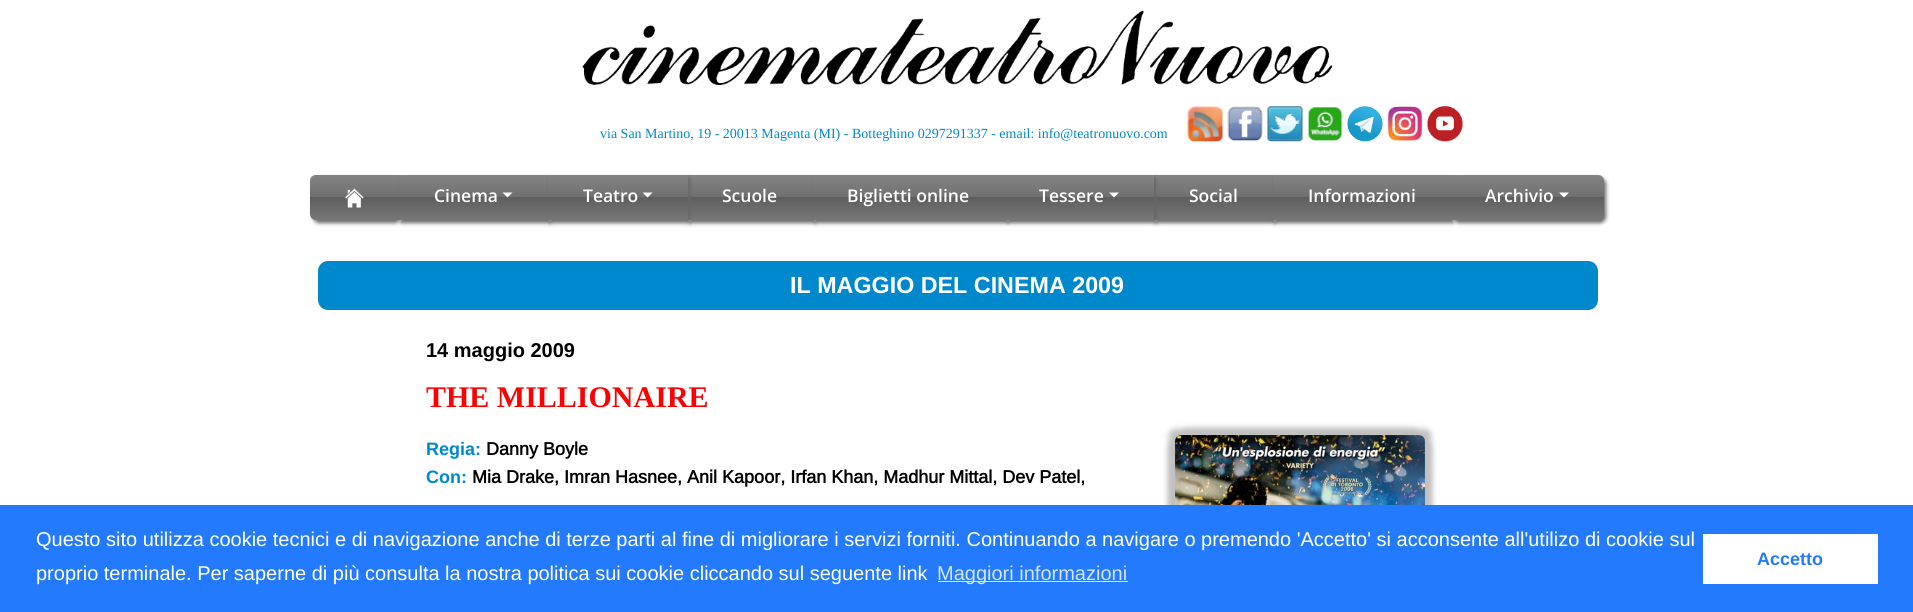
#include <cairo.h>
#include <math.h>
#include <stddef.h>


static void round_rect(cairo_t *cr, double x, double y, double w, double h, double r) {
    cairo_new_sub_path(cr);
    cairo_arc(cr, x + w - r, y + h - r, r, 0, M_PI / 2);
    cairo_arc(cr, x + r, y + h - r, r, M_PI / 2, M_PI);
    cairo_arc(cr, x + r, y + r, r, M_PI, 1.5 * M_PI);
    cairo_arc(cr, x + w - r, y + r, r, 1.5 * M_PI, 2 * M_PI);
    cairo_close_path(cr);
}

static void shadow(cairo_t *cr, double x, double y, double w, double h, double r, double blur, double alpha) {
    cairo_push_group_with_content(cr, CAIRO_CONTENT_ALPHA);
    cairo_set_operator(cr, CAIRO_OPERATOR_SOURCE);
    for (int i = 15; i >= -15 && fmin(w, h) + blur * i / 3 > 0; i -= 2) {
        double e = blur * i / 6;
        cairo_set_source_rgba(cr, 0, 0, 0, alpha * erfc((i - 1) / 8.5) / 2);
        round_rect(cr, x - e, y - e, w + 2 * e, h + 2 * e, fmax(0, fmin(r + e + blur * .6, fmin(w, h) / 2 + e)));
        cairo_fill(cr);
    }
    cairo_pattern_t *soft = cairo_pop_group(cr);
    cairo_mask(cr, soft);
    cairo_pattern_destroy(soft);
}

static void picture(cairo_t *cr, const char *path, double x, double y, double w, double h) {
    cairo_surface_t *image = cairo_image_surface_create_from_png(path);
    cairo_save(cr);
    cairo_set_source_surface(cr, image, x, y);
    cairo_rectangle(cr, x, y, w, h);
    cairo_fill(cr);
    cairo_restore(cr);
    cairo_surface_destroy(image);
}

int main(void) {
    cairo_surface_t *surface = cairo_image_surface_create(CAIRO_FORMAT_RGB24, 1913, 612);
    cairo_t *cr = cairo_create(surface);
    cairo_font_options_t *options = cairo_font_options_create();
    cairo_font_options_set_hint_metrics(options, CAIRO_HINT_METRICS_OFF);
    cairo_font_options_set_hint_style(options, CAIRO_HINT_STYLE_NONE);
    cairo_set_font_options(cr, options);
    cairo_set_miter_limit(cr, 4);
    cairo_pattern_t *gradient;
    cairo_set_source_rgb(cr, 1, 1, 1);
    cairo_paint(cr);
    picture(cr, "img1.png", 582, 10, 751, 75);
    cairo_select_font_face(cr, "Liberation Serif", CAIRO_FONT_SLANT_NORMAL, CAIRO_FONT_WEIGHT_NORMAL);
    cairo_set_font_size(cr, 14);
    cairo_set_source_rgb(cr, 0, 0.533, 0.8);
    cairo_move_to(cr, 600, 138);
    cairo_show_text(cr, "via San Martino, 19 - 20013 Magenta (MI) - Botteghino 0297291337 - email: info@teatronuovo.com");
    picture(cr, "img2.png", 1187, 106, 36, 36);
    picture(cr, "img3.png", 1227, 106, 36, 36);
    picture(cr, "img4.png", 1267, 106, 36, 36);
    picture(cr, "img5.png", 1308, 107, 35, 35);
    picture(cr, "img6.png", 1347, 106, 36, 36);
    picture(cr, "img7.png", 1387, 106, 36, 35);
    picture(cr, "img8.png", 1427, 106, 36, 36);
    cairo_set_source_rgb(cr, 0.4, 0.4, 0.4);
    shadow(cr, 313, 178, 88, 45, 6, 2, 1);
    gradient = cairo_pattern_create_linear(310, 220, 310, 175);
    cairo_pattern_add_color_stop_rgba(gradient, 0, 0.471, 0.471, 0.471, 1);
    cairo_pattern_add_color_stop_rgba(gradient, 0.5, 0.369, 0.369, 0.369, 1);
    cairo_pattern_add_color_stop_rgba(gradient, 0.51, 0.439, 0.439, 0.439, 1);
    cairo_pattern_add_color_stop_rgba(gradient, 1, 0.514, 0.514, 0.514, 1);
    cairo_set_source(cr, gradient);
    cairo_pattern_destroy(gradient);
    cairo_new_path(cr);
    cairo_move_to(cr, 316, 175);
    cairo_line_to(cr, 399, 175);
    cairo_line_to(cr, 399, 220);
    cairo_line_to(cr, 316, 220);
    cairo_curve_to(cr, 312.5, 220, 310, 217.5, 310, 214);
    cairo_line_to(cr, 310, 181);
    cairo_curve_to(cr, 310, 177.5, 312.5, 175, 316, 175);
    cairo_close_path(cr);
    cairo_fill(cr);
    picture(cr, "img9.png", 345, 188, 19, 20);
    cairo_set_source_rgb(cr, 0.4, 0.4, 0.4);
    shadow(cr, 401, 178, 149, 45, 0, 2, 1);
    gradient = cairo_pattern_create_linear(399, 220, 399, 175);
    cairo_pattern_add_color_stop_rgba(gradient, 0, 0.471, 0.471, 0.471, 1);
    cairo_pattern_add_color_stop_rgba(gradient, 0.5, 0.369, 0.369, 0.369, 1);
    cairo_pattern_add_color_stop_rgba(gradient, 0.51, 0.439, 0.439, 0.439, 1);
    cairo_pattern_add_color_stop_rgba(gradient, 1, 0.514, 0.514, 0.514, 1);
    cairo_set_source(cr, gradient);
    cairo_pattern_destroy(gradient);
    cairo_rectangle(cr, 399, 175, 149, 45);
    cairo_fill(cr);
    cairo_select_font_face(cr, "Open Sans SemiBold", CAIRO_FONT_SLANT_NORMAL, CAIRO_FONT_WEIGHT_NORMAL);
    cairo_set_font_size(cr, 17.5);
    cairo_set_source_rgb(cr, 1, 1, 1);
    cairo_move_to(cr, 434, 202);
    cairo_show_text(cr, "Cinema");
    cairo_new_path(cr);
    cairo_move_to(cr, 502.5, 192.5);
    cairo_line_to(cr, 512.5, 192.5);
    cairo_line_to(cr, 507.5, 197.5);
    cairo_close_path(cr);
    cairo_fill(cr);
    cairo_set_source_rgb(cr, 0.4, 0.4, 0.4);
    shadow(cr, 690, 178, 125, 45, 0, 2, 1);
    gradient = cairo_pattern_create_linear(688, 220, 688, 175);
    cairo_pattern_add_color_stop_rgba(gradient, 0, 0.471, 0.471, 0.471, 1);
    cairo_pattern_add_color_stop_rgba(gradient, 0.5, 0.369, 0.369, 0.369, 1);
    cairo_pattern_add_color_stop_rgba(gradient, 0.51, 0.439, 0.439, 0.439, 1);
    cairo_pattern_add_color_stop_rgba(gradient, 1, 0.514, 0.514, 0.514, 1);
    cairo_set_source(cr, gradient);
    cairo_pattern_destroy(gradient);
    cairo_rectangle(cr, 688, 175, 125, 45);
    cairo_fill(cr);
    cairo_set_source_rgb(cr, 0.4, 0.4, 0.4);
    shadow(cr, 550, 178, 140, 45, 0, 2, 1);
    gradient = cairo_pattern_create_linear(548, 220, 548, 175);
    cairo_pattern_add_color_stop_rgba(gradient, 0, 0.471, 0.471, 0.471, 1);
    cairo_pattern_add_color_stop_rgba(gradient, 0.5, 0.369, 0.369, 0.369, 1);
    cairo_pattern_add_color_stop_rgba(gradient, 0.51, 0.439, 0.439, 0.439, 1);
    cairo_pattern_add_color_stop_rgba(gradient, 1, 0.514, 0.514, 0.514, 1);
    cairo_set_source(cr, gradient);
    cairo_pattern_destroy(gradient);
    cairo_rectangle(cr, 548, 175, 140, 45);
    cairo_fill(cr);
    cairo_set_source_rgb(cr, 1, 1, 1);
    cairo_move_to(cr, 583, 202);
    cairo_show_text(cr, "Teatro");
    cairo_new_path(cr);
    cairo_move_to(cr, 642.5, 192.5);
    cairo_line_to(cr, 652.5, 192.5);
    cairo_line_to(cr, 647.5, 197.5);
    cairo_close_path(cr);
    cairo_fill(cr);
    cairo_move_to(cr, 722, 202);
    cairo_show_text(cr, "Scuole");
    cairo_set_source_rgb(cr, 0.4, 0.4, 0.4);
    shadow(cr, 815, 178, 193, 45, 0, 2, 1);
    gradient = cairo_pattern_create_linear(813, 220, 813, 175);
    cairo_pattern_add_color_stop_rgba(gradient, 0, 0.471, 0.471, 0.471, 1);
    cairo_pattern_add_color_stop_rgba(gradient, 0.5, 0.369, 0.369, 0.369, 1);
    cairo_pattern_add_color_stop_rgba(gradient, 0.51, 0.439, 0.439, 0.439, 1);
    cairo_pattern_add_color_stop_rgba(gradient, 1, 0.514, 0.514, 0.514, 1);
    cairo_set_source(cr, gradient);
    cairo_pattern_destroy(gradient);
    cairo_rectangle(cr, 813, 175, 192, 45);
    cairo_fill(cr);
    cairo_set_source_rgb(cr, 1, 1, 1);
    cairo_move_to(cr, 847, 202);
    cairo_show_text(cr, "Biglietti online");
    cairo_set_source_rgb(cr, 0.4, 0.4, 0.4);
    shadow(cr, 1156, 178, 119, 45, 0, 2, 1);
    gradient = cairo_pattern_create_linear(1154, 220, 1154, 175);
    cairo_pattern_add_color_stop_rgba(gradient, 0, 0.471, 0.471, 0.471, 1);
    cairo_pattern_add_color_stop_rgba(gradient, 0.5, 0.369, 0.369, 0.369, 1);
    cairo_pattern_add_color_stop_rgba(gradient, 0.51, 0.439, 0.439, 0.439, 1);
    cairo_pattern_add_color_stop_rgba(gradient, 1, 0.514, 0.514, 0.514, 1);
    cairo_set_source(cr, gradient);
    cairo_pattern_destroy(gradient);
    cairo_rectangle(cr, 1154, 175, 119, 45);
    cairo_fill(cr);
    cairo_set_source_rgb(cr, 0.4, 0.4, 0.4);
    shadow(cr, 1008, 178, 148, 45, 0, 2, 1);
    gradient = cairo_pattern_create_linear(1005, 220, 1005, 175);
    cairo_pattern_add_color_stop_rgba(gradient, 0, 0.471, 0.471, 0.471, 1);
    cairo_pattern_add_color_stop_rgba(gradient, 0.5, 0.369, 0.369, 0.369, 1);
    cairo_pattern_add_color_stop_rgba(gradient, 0.51, 0.439, 0.439, 0.439, 1);
    cairo_pattern_add_color_stop_rgba(gradient, 1, 0.514, 0.514, 0.514, 1);
    cairo_set_source(cr, gradient);
    cairo_pattern_destroy(gradient);
    cairo_rectangle(cr, 1005, 175, 149, 45);
    cairo_fill(cr);
    cairo_set_source_rgb(cr, 1, 1, 1);
    cairo_move_to(cr, 1039, 202);
    cairo_show_text(cr, "Tessere");
    cairo_new_path(cr);
    cairo_move_to(cr, 1109, 192.5);
    cairo_line_to(cr, 1119, 192.5);
    cairo_line_to(cr, 1114, 197.5);
    cairo_close_path(cr);
    cairo_fill(cr);
    cairo_move_to(cr, 1189, 202);
    cairo_show_text(cr, "Social");
    cairo_set_source_rgb(cr, 0.4, 0.4, 0.4);
    shadow(cr, 1275, 178, 178, 45, 0, 2, 1);
    gradient = cairo_pattern_create_linear(1273, 220, 1273, 175);
    cairo_pattern_add_color_stop_rgba(gradient, 0, 0.471, 0.471, 0.471, 1);
    cairo_pattern_add_color_stop_rgba(gradient, 0.5, 0.369, 0.369, 0.369, 1);
    cairo_pattern_add_color_stop_rgba(gradient, 0.51, 0.439, 0.439, 0.439, 1);
    cairo_pattern_add_color_stop_rgba(gradient, 1, 0.514, 0.514, 0.514, 1);
    cairo_set_source(cr, gradient);
    cairo_pattern_destroy(gradient);
    cairo_rectangle(cr, 1273, 175, 177, 45);
    cairo_fill(cr);
    cairo_set_source_rgb(cr, 1, 1, 1);
    cairo_move_to(cr, 1308, 202);
    cairo_show_text(cr, "Informazioni");
    cairo_set_source_rgb(cr, 0.4, 0.4, 0.4);
    shadow(cr, 1453, 178, 153, 45, 6, 2, 1);
    gradient = cairo_pattern_create_linear(1450, 220, 1450, 175);
    cairo_pattern_add_color_stop_rgba(gradient, 0, 0.471, 0.471, 0.471, 1);
    cairo_pattern_add_color_stop_rgba(gradient, 0.5, 0.369, 0.369, 0.369, 1);
    cairo_pattern_add_color_stop_rgba(gradient, 0.51, 0.439, 0.439, 0.439, 1);
    cairo_pattern_add_color_stop_rgba(gradient, 1, 0.514, 0.514, 0.514, 1);
    cairo_set_source(cr, gradient);
    cairo_pattern_destroy(gradient);
    cairo_new_path(cr);
    cairo_move_to(cr, 1450, 175);
    cairo_line_to(cr, 1598, 175);
    cairo_curve_to(cr, 1601.5, 175, 1604, 177.5, 1604, 181);
    cairo_line_to(cr, 1604, 214);
    cairo_curve_to(cr, 1604, 217.5, 1601.5, 220, 1598, 220);
    cairo_line_to(cr, 1450, 220);
    cairo_close_path(cr);
    cairo_fill(cr);
    cairo_set_source_rgb(cr, 1, 1, 1);
    cairo_move_to(cr, 1485, 202);
    cairo_show_text(cr, "Archivio");
    cairo_new_path(cr);
    cairo_move_to(cr, 1559, 192.5);
    cairo_line_to(cr, 1569, 192.5);
    cairo_line_to(cr, 1564, 197.5);
    cairo_close_path(cr);
    cairo_fill(cr);
    cairo_set_source_rgb(cr, 0, 0.533, 0.8);
    round_rect(cr, 318, 261, 1280, 49, 10);
    cairo_fill(cr);
    cairo_select_font_face(cr, "Liberation Sans", CAIRO_FONT_SLANT_NORMAL, CAIRO_FONT_WEIGHT_BOLD);
    cairo_set_font_size(cr, 23.3);
    cairo_set_source_rgb(cr, 1, 1, 1);
    cairo_move_to(cr, 790, 293);
    cairo_show_text(cr, "IL MAGGIO DEL CINEMA 2009");
    cairo_set_font_size(cr, 20);
    cairo_set_source_rgb(cr, 0, 0, 0);
    cairo_move_to(cr, 426, 357);
    cairo_show_text(cr, "14 maggio 2009");
    cairo_select_font_face(cr, "Liberation Serif", CAIRO_FONT_SLANT_NORMAL, CAIRO_FONT_WEIGHT_BOLD);
    cairo_set_font_size(cr, 30);
    cairo_set_source_rgb(cr, 1, 0, 0);
    cairo_move_to(cr, 426, 407);
    cairo_show_text(cr, "THE MILLIONAIRE");
    cairo_select_font_face(cr, "Liberation Sans", CAIRO_FONT_SLANT_NORMAL, CAIRO_FONT_WEIGHT_BOLD);
    cairo_set_font_size(cr, 18);
    cairo_set_source_rgb(cr, 0, 0.533, 0.8);
    cairo_move_to(cr, 426, 455);
    cairo_show_text(cr, "Regia:");
    cairo_select_font_face(cr, "Arimo", CAIRO_FONT_SLANT_NORMAL, CAIRO_FONT_WEIGHT_BOLD);
    cairo_set_source_rgb(cr, 0, 0, 0);
    cairo_move_to(cr, 486, 455);
    cairo_show_text(cr, "Danny Boyle");
    cairo_select_font_face(cr, "Liberation Sans", CAIRO_FONT_SLANT_NORMAL, CAIRO_FONT_WEIGHT_BOLD);
    cairo_set_source_rgb(cr, 0, 0.533, 0.8);
    cairo_move_to(cr, 426, 483);
    cairo_show_text(cr, "Con:");
    cairo_select_font_face(cr, "Arimo", CAIRO_FONT_SLANT_NORMAL, CAIRO_FONT_WEIGHT_BOLD);
    cairo_set_source_rgb(cr, 0, 0, 0);
    cairo_move_to(cr, 472, 483);
    cairo_show_text(cr, "Mia Drake, Imran Hasnee, Anil Kapoor, Irfan Khan, Madhur Mittal, Dev Patel,");
    cairo_set_source_rgb(cr, 0.753, 0.753, 0.753);
    shadow(cr, 1169, 429, 250, 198, 6, 3, 1);
    shadow(cr, 1181, 429, 250, 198, 6, 3, 1);
    shadow(cr, 1169, 441, 250, 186, 6, 3, 1);
    shadow(cr, 1181, 441, 250, 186, 6, 3, 1);
    picture(cr, "img10.png", 1175, 435, 250, 70);
    cairo_set_source_rgb(cr, 0.137, 0.478, 0.988);
    cairo_rectangle(cr, 0, 505, 1913, 107);
    cairo_fill(cr);
    cairo_select_font_face(cr, "Liberation Sans", CAIRO_FONT_SLANT_NORMAL, CAIRO_FONT_WEIGHT_NORMAL);
    cairo_set_font_size(cr, 20);
    cairo_set_source_rgb(cr, 1, 1, 1);
    cairo_move_to(cr, 36, 546);
    cairo_show_text(cr, "Questo sito utilizza cookie tecnici e di navigazione anche di terze parti al fine di migliorare i servizi forniti. Continuando a navigare o premendo 'Accetto' si acconsente all'utilizo di cookie sul");
    cairo_move_to(cr, 36, 580);
    cairo_show_text(cr, "proprio terminale. Per saperne di più consulta la nostra politica sui cookie cliccando sul seguente link");
    cairo_set_source_rgb(cr, 0.827, 0.894, 0.996);
    cairo_rectangle(cr, 938, 581, 190, 1);
    cairo_fill(cr);
    cairo_move_to(cr, 937, 580);
    cairo_show_text(cr, "Maggiori informazioni");
    cairo_set_source_rgb(cr, 1, 1, 1);
    cairo_rectangle(cr, 1703, 534, 175, 50);
    cairo_fill(cr);
    cairo_select_font_face(cr, "Liberation Sans", CAIRO_FONT_SLANT_NORMAL, CAIRO_FONT_WEIGHT_BOLD);
    cairo_set_font_size(cr, 18);
    cairo_set_source_rgb(cr, 0.137, 0.478, 0.988);
    cairo_move_to(cr, 1757, 565);
    cairo_show_text(cr, "Accetto");
    cairo_surface_write_to_png(surface, "page.png");
    cairo_font_options_destroy(options);
    cairo_destroy(cr);
    cairo_surface_destroy(surface);
    return 0;
}
